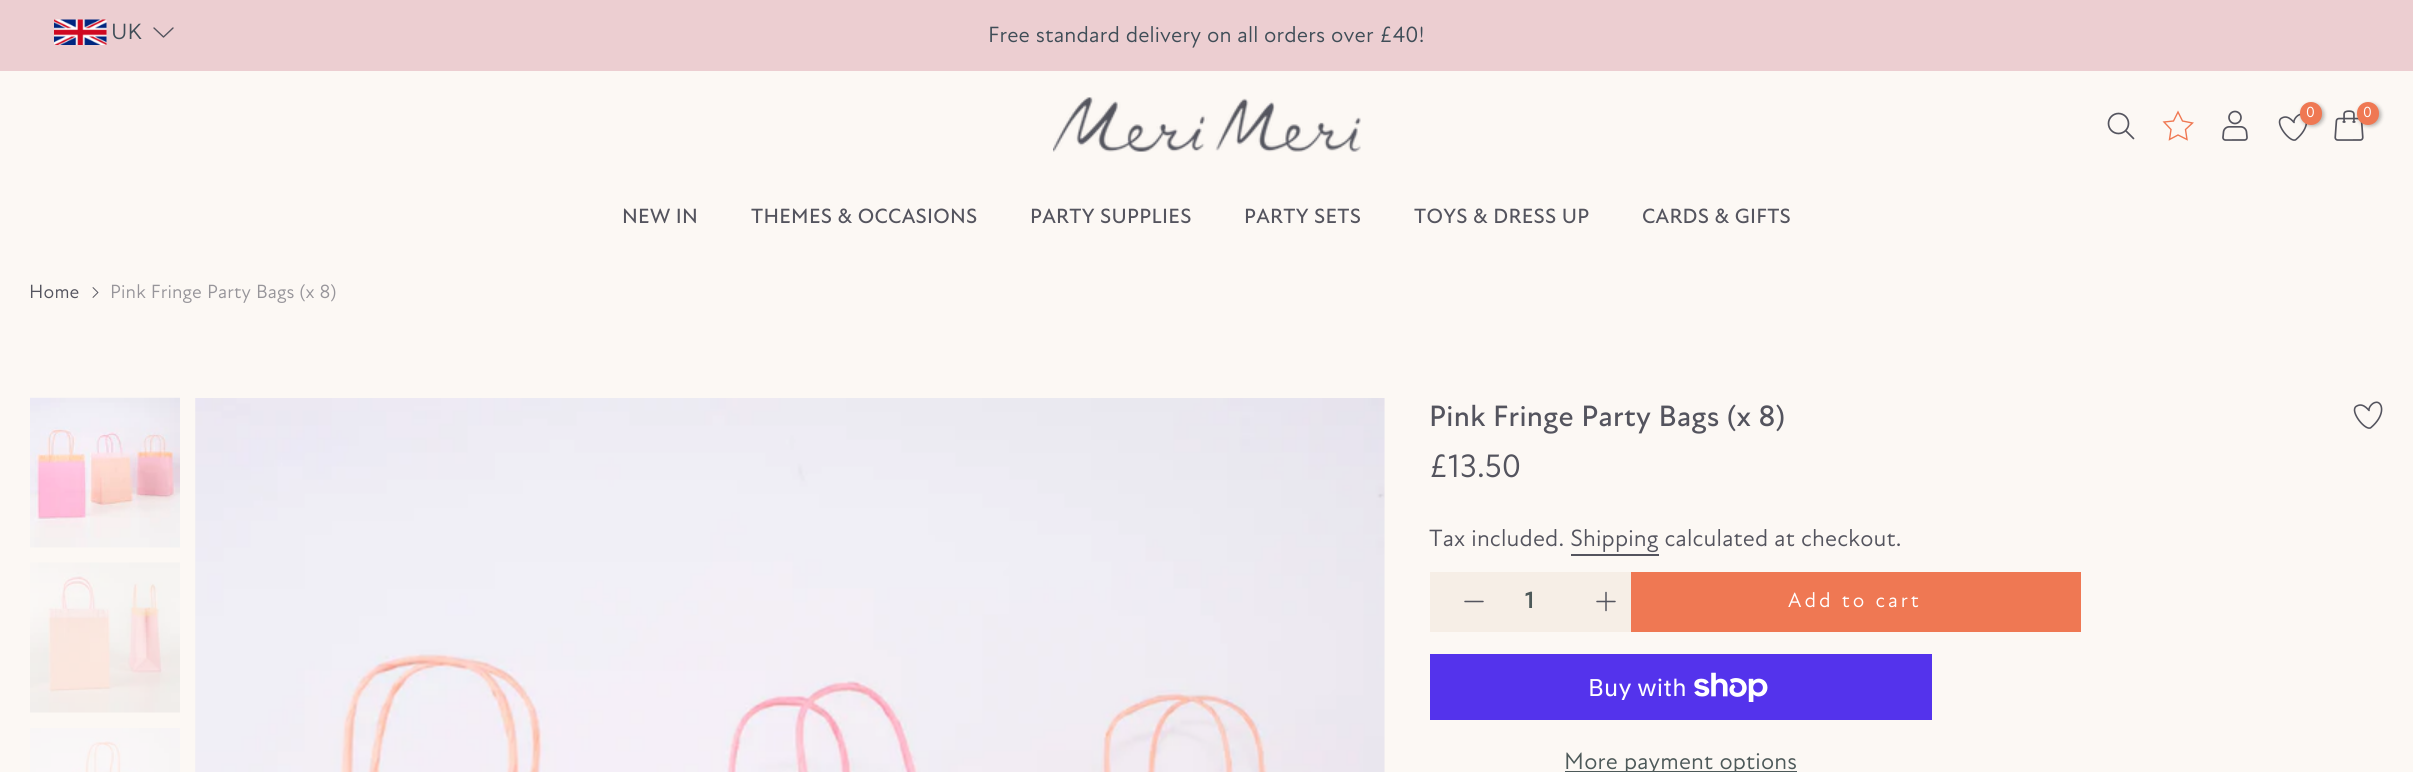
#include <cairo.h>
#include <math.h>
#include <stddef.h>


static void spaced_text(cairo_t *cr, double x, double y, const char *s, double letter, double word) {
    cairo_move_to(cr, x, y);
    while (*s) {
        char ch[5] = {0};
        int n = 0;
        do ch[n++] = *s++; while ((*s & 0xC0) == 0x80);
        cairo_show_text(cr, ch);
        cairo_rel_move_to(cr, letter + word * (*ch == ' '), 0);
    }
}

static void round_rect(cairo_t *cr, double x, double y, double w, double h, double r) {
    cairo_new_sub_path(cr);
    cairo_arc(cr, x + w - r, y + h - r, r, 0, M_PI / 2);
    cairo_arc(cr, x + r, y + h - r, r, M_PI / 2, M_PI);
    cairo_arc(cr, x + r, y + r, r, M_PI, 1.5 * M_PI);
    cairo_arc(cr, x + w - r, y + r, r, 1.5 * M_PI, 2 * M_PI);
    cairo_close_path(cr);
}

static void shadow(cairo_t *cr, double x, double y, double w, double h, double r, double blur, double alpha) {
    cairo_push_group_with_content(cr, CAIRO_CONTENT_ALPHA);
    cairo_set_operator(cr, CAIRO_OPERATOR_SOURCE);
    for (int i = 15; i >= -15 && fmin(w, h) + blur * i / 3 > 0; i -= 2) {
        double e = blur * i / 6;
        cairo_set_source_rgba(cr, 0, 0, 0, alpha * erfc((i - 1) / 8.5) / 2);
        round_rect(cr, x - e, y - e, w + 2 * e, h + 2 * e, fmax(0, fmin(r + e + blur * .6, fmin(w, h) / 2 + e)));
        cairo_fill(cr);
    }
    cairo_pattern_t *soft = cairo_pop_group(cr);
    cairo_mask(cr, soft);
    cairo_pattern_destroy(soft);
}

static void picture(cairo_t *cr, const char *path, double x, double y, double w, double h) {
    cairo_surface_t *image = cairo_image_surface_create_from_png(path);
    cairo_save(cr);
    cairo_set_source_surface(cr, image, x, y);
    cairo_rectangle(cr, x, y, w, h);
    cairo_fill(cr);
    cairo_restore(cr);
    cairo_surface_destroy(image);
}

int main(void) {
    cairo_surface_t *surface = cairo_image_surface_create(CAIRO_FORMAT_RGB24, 2413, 772);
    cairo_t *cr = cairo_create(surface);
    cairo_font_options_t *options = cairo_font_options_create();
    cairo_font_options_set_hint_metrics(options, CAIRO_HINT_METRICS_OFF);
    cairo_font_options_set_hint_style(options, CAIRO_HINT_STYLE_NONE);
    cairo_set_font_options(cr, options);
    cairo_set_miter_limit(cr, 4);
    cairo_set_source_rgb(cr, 0.988, 0.969, 0.957);
    cairo_paint(cr);
    cairo_set_source_rgb(cr, 0.925, 0.808, 0.82);
    cairo_rectangle(cr, 0, 0, 2413, 71);
    cairo_fill(cr);
    picture(cr, "img1.png", 54, 19, 53, 26);
    cairo_select_font_face(cr, "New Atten", CAIRO_FONT_SLANT_NORMAL, CAIRO_FONT_WEIGHT_NORMAL);
    cairo_set_font_size(cr, 22.5);
    cairo_set_source_rgb(cr, 0.247, 0.302, 0.341);
    spaced_text(cr, 111, 39, "UK", 0.15, 0);
    cairo_new_path(cr);
    cairo_move_to(cr, 154, 28);
    cairo_line_to(cr, 163.5, 37);
    cairo_line_to(cr, 173, 28);
    cairo_set_source_rgb(cr, 0.329, 0.329, 0.369);
    cairo_set_line_width(cr, 1.4);
    cairo_set_line_cap(cr, CAIRO_LINE_CAP_ROUND);
    cairo_set_line_join(cr, CAIRO_LINE_JOIN_ROUND);
    cairo_stroke(cr);
    cairo_set_source_rgb(cr, 0.247, 0.302, 0.341);
    spaced_text(cr, 988, 42, "Free standard delivery on all orders over £40!", 0.15, 0);
    picture(cr, "img2.png", 1053, 97, 308, 55);
    cairo_arc(cr, 2118.5, 123.5, 10, 0, 2 * M_PI);
    cairo_set_source_rgb(cr, 0.329, 0.329, 0.369);
    cairo_set_line_width(cr, 1.7);
    cairo_set_line_cap(cr, CAIRO_LINE_CAP_BUTT);
    cairo_set_line_join(cr, CAIRO_LINE_JOIN_MITER);
    cairo_stroke(cr);
    cairo_new_path(cr);
    cairo_move_to(cr, 2133.5, 138.5);
    cairo_line_to(cr, 2126, 131);
    cairo_set_line_cap(cr, CAIRO_LINE_CAP_ROUND);
    cairo_stroke(cr);
    cairo_new_path(cr);
    cairo_move_to(cr, 2173.5, 121);
    cairo_line_to(cr, 2178, 112);
    cairo_line_to(cr, 2182.5, 121);
    cairo_line_to(cr, 2192.5, 123);
    cairo_line_to(cr, 2185.5, 129.5);
    cairo_line_to(cr, 2187, 139.5);
    cairo_line_to(cr, 2178, 135);
    cairo_line_to(cr, 2169.5, 139.5);
    cairo_line_to(cr, 2171, 129.5);
    cairo_line_to(cr, 2164, 122);
    cairo_close_path(cr);
    cairo_set_source_rgb(cr, 0.937, 0.471, 0.325);
    cairo_set_line_width(cr, 1.4);
    cairo_set_line_cap(cr, CAIRO_LINE_CAP_BUTT);
    cairo_stroke(cr);
    picture(cr, "img3.png", 2222, 110, 26, 31);
    cairo_new_path(cr);
    cairo_move_to(cr, 2303, 114.5);
    cairo_curve_to(cr, 2308, 116.5, 2309.5, 128, 2296, 139.5);
    cairo_curve_to(cr, 2291, 144, 2274.5, 123.5, 2281, 118.5);
    cairo_curve_to(cr, 2289, 113, 2295, 125, 2294, 122);
    cairo_curve_to(cr, 2293.5, 119.5, 2298, 113, 2303, 114.5);
    cairo_close_path(cr);
    cairo_set_source_rgb(cr, 0.329, 0.329, 0.369);
    cairo_set_line_width(cr, 1.6);
    cairo_stroke(cr);
    cairo_set_source_rgb(cr, 0, 0, 0);
    shadow(cr, 2301, 104, 23, 22, 11, 2, 0.3);
    cairo_set_source_rgb(cr, 0.937, 0.471, 0.325);
    round_rect(cr, 2300, 102, 22, 23, 11);
    cairo_fill(cr);
    cairo_set_font_size(cr, 15);
    cairo_set_source_rgb(cr, 1, 1, 1);
    cairo_move_to(cr, 2306, 117);
    cairo_show_text(cr, "0");
    picture(cr, "img4.png", 2334, 110, 30, 31);
    cairo_set_source_rgb(cr, 0, 0, 0);
    shadow(cr, 2358, 104, 23, 22, 11, 2, 0.3);
    cairo_set_source_rgb(cr, 0.937, 0.471, 0.325);
    round_rect(cr, 2357, 102, 22, 23, 11);
    cairo_fill(cr);
    cairo_set_source_rgb(cr, 1, 1, 1);
    cairo_move_to(cr, 2363, 117);
    cairo_show_text(cr, "0");
    cairo_select_font_face(cr, "New Atten Medium", CAIRO_FONT_SLANT_NORMAL, CAIRO_FONT_WEIGHT_NORMAL);
    cairo_set_font_size(cr, 21);
    cairo_set_source_rgb(cr, 0.329, 0.329, 0.369);
    spaced_text(cr, 622, 223, "NEW IN", 0.3, 0);
    spaced_text(cr, 751, 223, "THEMES & OCCASIONS", 0.3, 0);
    spaced_text(cr, 1030, 223, "PARTY SUPPLIES", 0.3, 0);
    spaced_text(cr, 1244, 223, "PARTY SETS", 0.3, 0);
    spaced_text(cr, 1414, 223, "TOYS & DRESS UP", 0.3, 0);
    spaced_text(cr, 1642, 223, "CARDS & GIFTS", 0.3, 0);
    cairo_select_font_face(cr, "New Atten", CAIRO_FONT_SLANT_NORMAL, CAIRO_FONT_WEIGHT_NORMAL);
    cairo_set_font_size(cr, 19.5);
    spaced_text(cr, 29, 298, "Home", 0.15, 0);
    picture(cr, "img5.png", 92, 287, 7, 11);
    cairo_set_source_rgb(cr, 0.592, 0.584, 0.604);
    spaced_text(cr, 110, 298, "Pink Fringe Party Bags (x 8)", 0.15, 0);
    picture(cr, "img6.png", 30, 397, 150, 151);
    picture(cr, "img7.png", 30, 562, 150, 151);
    picture(cr, "img8.png", 30, 728, 150, 44);
    picture(cr, "img9.png", 195, 398, 1190, 374);
    cairo_select_font_face(cr, "New Atten Medium", CAIRO_FONT_SLANT_NORMAL, CAIRO_FONT_WEIGHT_NORMAL);
    cairo_set_font_size(cr, 30);
    cairo_set_source_rgb(cr, 0.329, 0.329, 0.369);
    spaced_text(cr, 1429, 426, "Pink Fringe Party Bags (x 8)", 0.3, 0);
    cairo_new_path(cr);
    cairo_move_to(cr, 2378, 402.5);
    cairo_curve_to(cr, 2383, 404.5, 2384.5, 416, 2371, 427.5);
    cairo_curve_to(cr, 2366, 432, 2349.5, 411.5, 2356, 406.5);
    cairo_curve_to(cr, 2364, 401, 2370, 413, 2369, 410);
    cairo_curve_to(cr, 2368.5, 407.5, 2373, 401, 2378, 402.5);
    cairo_close_path(cr);
    cairo_stroke(cr);
    cairo_select_font_face(cr, "New Atten", CAIRO_FONT_SLANT_NORMAL, CAIRO_FONT_WEIGHT_NORMAL);
    cairo_set_font_size(cr, 33);
    spaced_text(cr, 1429, 477, "£13.50", 0.15, 0);
    cairo_set_font_size(cr, 24);
    spaced_text(cr, 1429, 546, "Tax included. Shipping calculated at checkout.", 0.15, 0);
    cairo_rectangle(cr, 1571, 554, 88, 2);
    cairo_fill(cr);
    cairo_set_source_rgb(cr, 0.961, 0.933, 0.902);
    cairo_rectangle(cr, 1430, 572, 201, 60);
    cairo_fill(cr);
    cairo_new_path(cr);
    cairo_move_to(cr, 1483, 601.5);
    cairo_line_to(cr, 1465, 601.5);
    cairo_set_source_rgb(cr, 0.329, 0.329, 0.369);
    cairo_set_line_width(cr, 1.5);
    cairo_set_line_cap(cr, CAIRO_LINE_CAP_ROUND);
    cairo_stroke(cr);
    cairo_select_font_face(cr, "New Atten", CAIRO_FONT_SLANT_NORMAL, CAIRO_FONT_WEIGHT_BOLD);
    cairo_set_source_rgb(cr, 0.302, 0.349, 0.349);
    cairo_move_to(cr, 1525, 608);
    cairo_show_text(cr, "1");
    cairo_new_path(cr);
    cairo_move_to(cr, 1615, 601.5);
    cairo_line_to(cr, 1597, 601.5);
    cairo_move_to(cr, 1606, 610.5);
    cairo_line_to(cr, 1606, 592.5);
    cairo_set_source_rgb(cr, 0.329, 0.329, 0.369);
    cairo_stroke(cr);
    cairo_set_source_rgb(cr, 0.937, 0.471, 0.325);
    cairo_rectangle(cr, 1631, 572, 450, 60);
    cairo_fill(cr);
    cairo_select_font_face(cr, "New Atten", CAIRO_FONT_SLANT_NORMAL, CAIRO_FONT_WEIGHT_NORMAL);
    cairo_set_font_size(cr, 21);
    cairo_set_source_rgb(cr, 1, 1, 1);
    spaced_text(cr, 1788, 607, "Add to cart", 3, 0);
    cairo_set_source_rgb(cr, 0.329, 0.2, 0.922);
    cairo_rectangle(cr, 1430, 654, 502, 66);
    cairo_fill(cr);
    cairo_select_font_face(cr, "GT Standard", CAIRO_FONT_SLANT_NORMAL, CAIRO_FONT_WEIGHT_NORMAL);
    cairo_set_font_size(cr, 24);
    cairo_set_source_rgb(cr, 1, 1, 1);
    spaced_text(cr, 1588, 696, "Buy with", 0.15, 0);
    picture(cr, "img10.png", 1694, 672, 74, 30);
    cairo_set_source_rgb(cr, 0.302, 0.349, 0.349);
    cairo_rectangle(cr, 1565, 771, 232, 1);
    cairo_fill(cr);
    cairo_select_font_face(cr, "New Atten", CAIRO_FONT_SLANT_NORMAL, CAIRO_FONT_WEIGHT_NORMAL);
    spaced_text(cr, 1564, 769, "More payment options", 0.15, 0);
    cairo_surface_write_to_png(surface, "page.png");
    cairo_font_options_destroy(options);
    cairo_destroy(cr);
    cairo_surface_destroy(surface);
    return 0;
}
